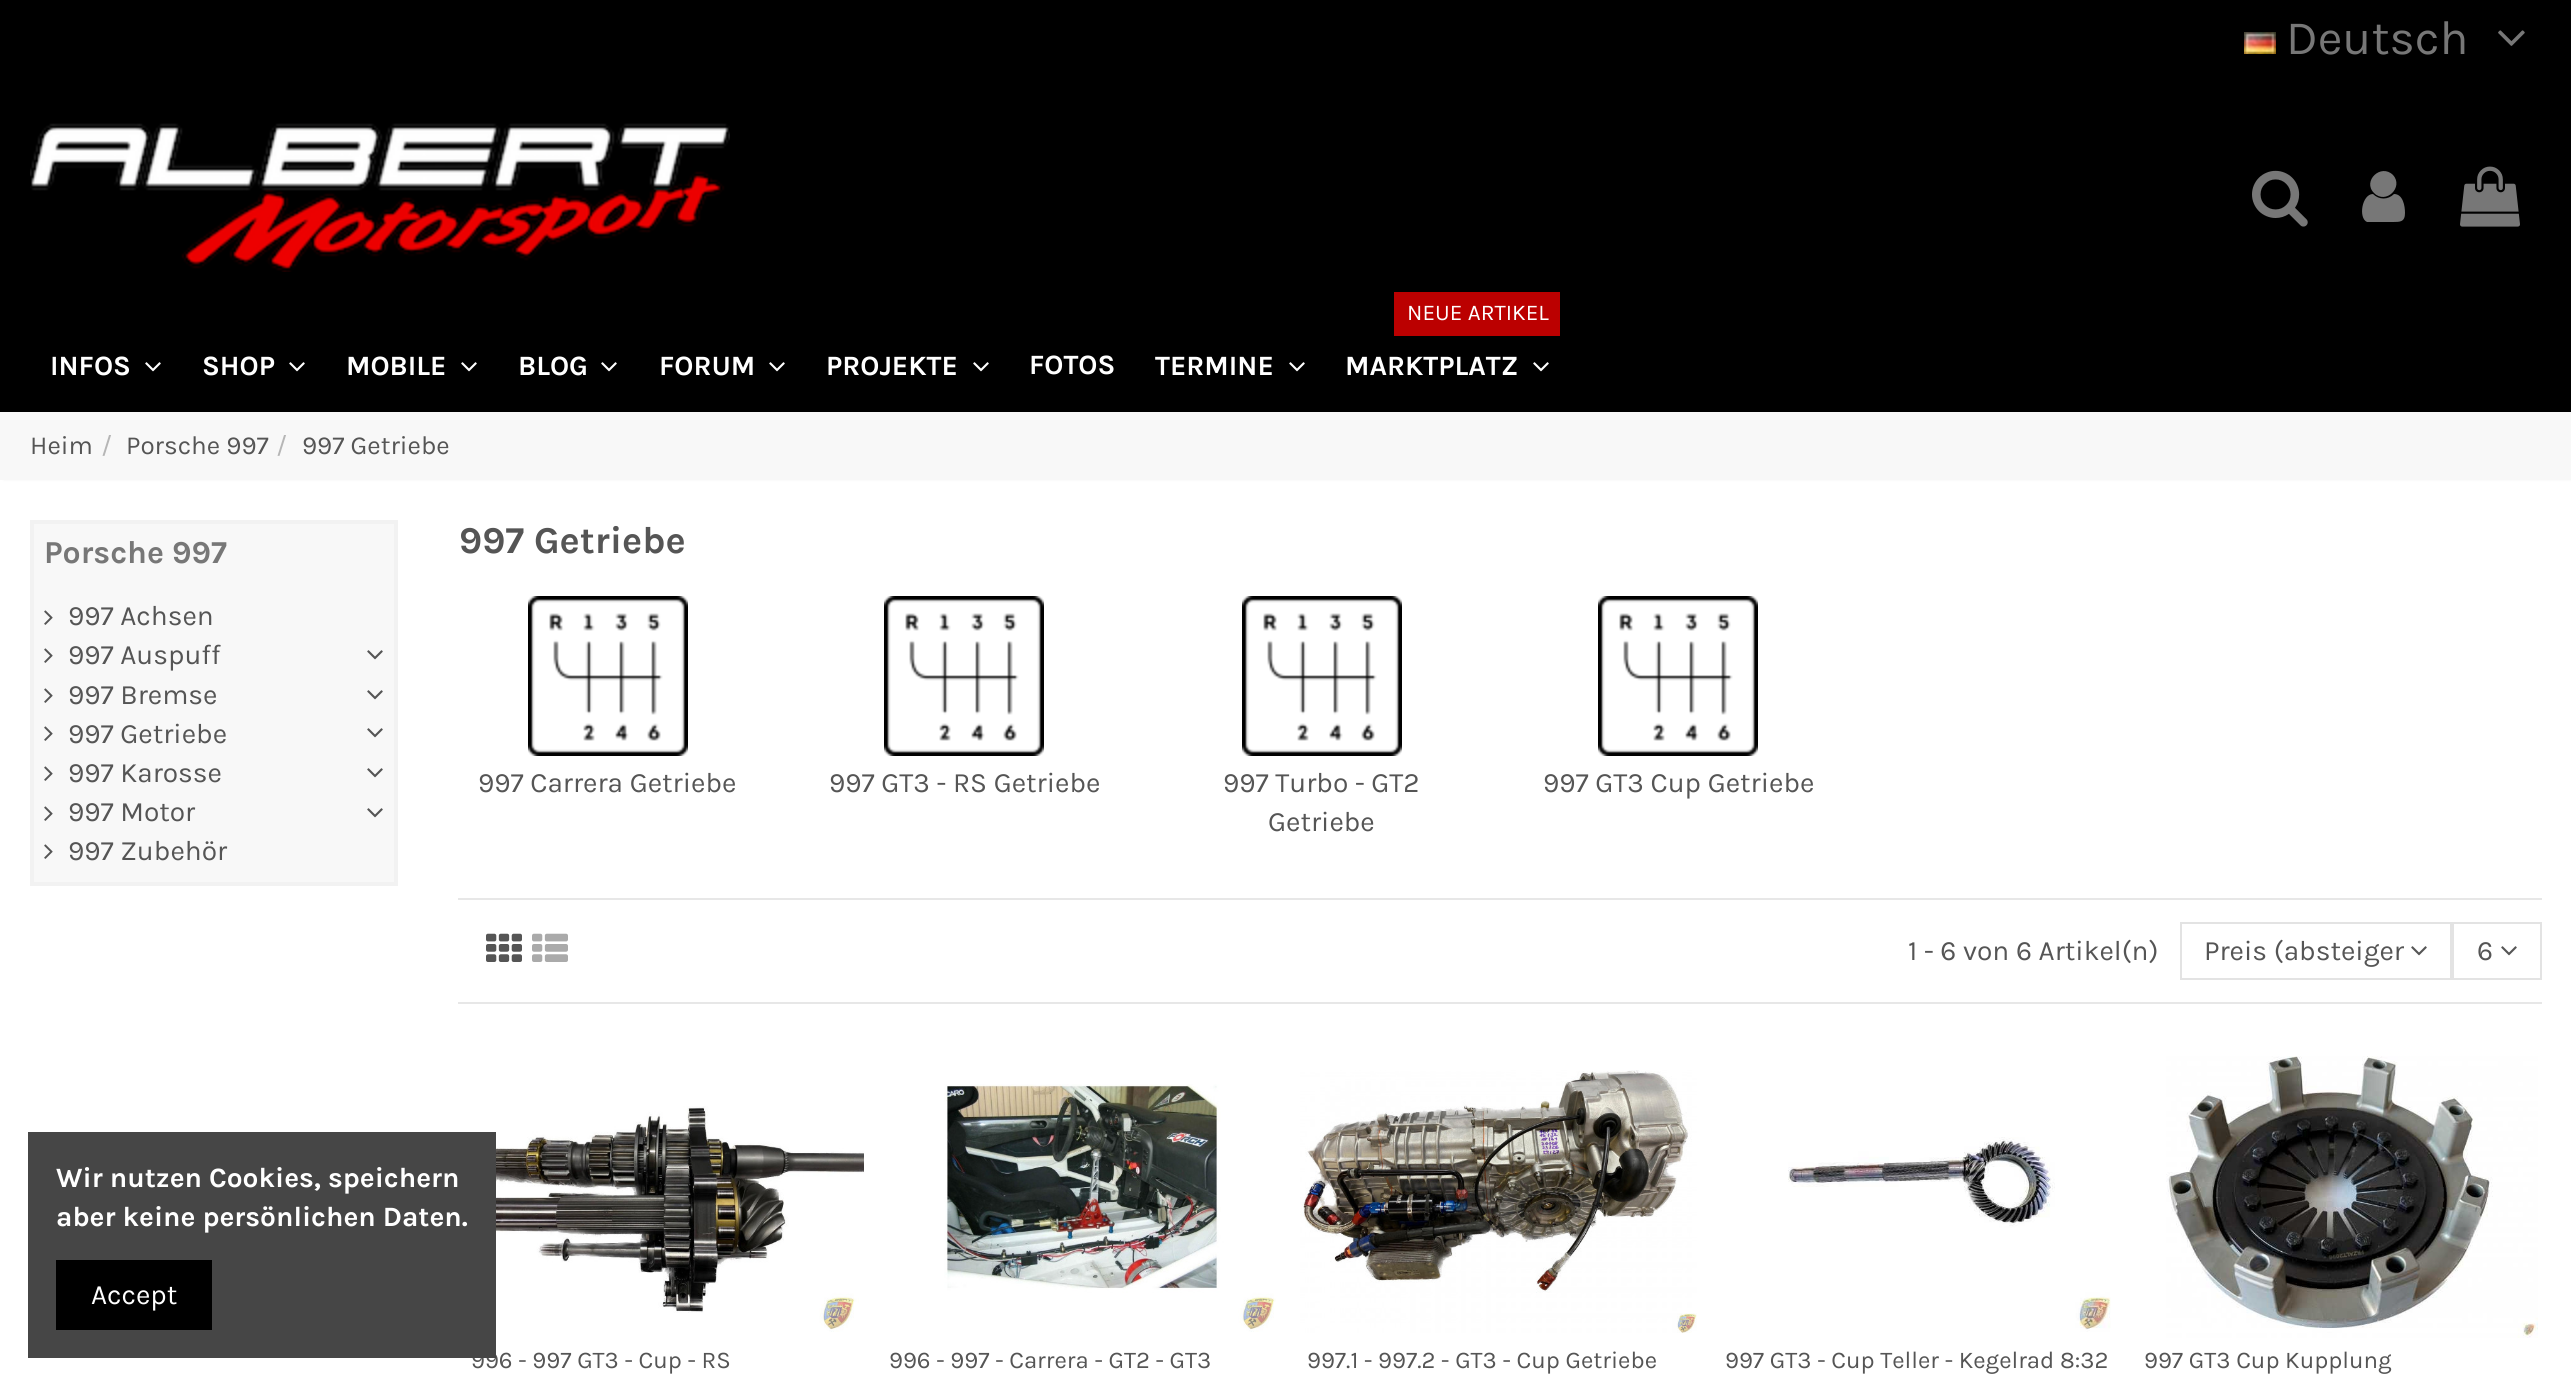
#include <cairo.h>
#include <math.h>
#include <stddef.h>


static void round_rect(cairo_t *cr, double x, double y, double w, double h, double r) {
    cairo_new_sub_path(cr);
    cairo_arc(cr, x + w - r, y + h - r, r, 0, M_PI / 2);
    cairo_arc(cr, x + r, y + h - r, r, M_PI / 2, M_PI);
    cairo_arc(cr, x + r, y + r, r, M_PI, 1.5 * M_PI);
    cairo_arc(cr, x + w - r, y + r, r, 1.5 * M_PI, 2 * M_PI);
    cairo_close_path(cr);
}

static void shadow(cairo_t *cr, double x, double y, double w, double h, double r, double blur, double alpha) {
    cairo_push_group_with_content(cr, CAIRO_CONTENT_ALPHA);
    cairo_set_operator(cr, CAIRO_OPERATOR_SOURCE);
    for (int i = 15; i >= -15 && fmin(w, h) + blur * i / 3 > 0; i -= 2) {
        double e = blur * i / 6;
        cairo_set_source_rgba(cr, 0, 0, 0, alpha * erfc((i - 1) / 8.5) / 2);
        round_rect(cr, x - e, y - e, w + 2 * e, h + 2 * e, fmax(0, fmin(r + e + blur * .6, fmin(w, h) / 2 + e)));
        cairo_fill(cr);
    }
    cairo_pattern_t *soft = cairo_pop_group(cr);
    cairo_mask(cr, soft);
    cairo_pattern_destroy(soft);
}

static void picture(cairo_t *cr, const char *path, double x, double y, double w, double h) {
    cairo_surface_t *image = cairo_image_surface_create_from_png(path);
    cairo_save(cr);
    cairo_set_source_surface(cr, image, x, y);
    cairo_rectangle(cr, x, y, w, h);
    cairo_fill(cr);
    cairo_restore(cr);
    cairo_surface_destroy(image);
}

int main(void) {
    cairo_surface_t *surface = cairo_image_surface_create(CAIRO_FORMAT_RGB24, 2571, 1385);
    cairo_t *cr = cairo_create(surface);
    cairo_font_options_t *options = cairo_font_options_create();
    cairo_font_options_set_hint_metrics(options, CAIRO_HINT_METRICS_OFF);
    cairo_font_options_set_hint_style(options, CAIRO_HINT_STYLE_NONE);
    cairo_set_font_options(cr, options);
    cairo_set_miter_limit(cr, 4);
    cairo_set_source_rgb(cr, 1, 1, 1);
    cairo_paint(cr);
    cairo_set_source_rgb(cr, 0.953, 0.953, 0.953);
    shadow(cr, 4, 412, 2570, 68, 0, 1, 1);
    cairo_set_source_rgb(cr, 0, 0, 0);
    cairo_rectangle(cr, 0, 0, 2571, 412);
    cairo_fill(cr);
    picture(cr, "img1.png", 2244, 32, 32, 22);
    cairo_select_font_face(cr, "Karla", CAIRO_FONT_SLANT_NORMAL, CAIRO_FONT_WEIGHT_NORMAL);
    cairo_set_font_size(cr, 48);
    cairo_set_source_rgb(cr, 0.467, 0.467, 0.467);
    cairo_move_to(cr, 2286, 54);
    cairo_show_text(cr, "Deutsch");
    picture(cr, "img2.png", 2498, 30, 27, 16);
    picture(cr, "img3.png", 30, 123, 700, 149);
    picture(cr, "img4.png", 2252, 170, 56, 57);
    cairo_new_path(cr);
    cairo_move_to(cr, 2405, 213);
    cairo_curve_to(cr, 2405, 222, 2400, 222, 2393, 222);
    cairo_line_to(cr, 2367, 222);
    cairo_curve_to(cr, 2358, 218, 2362, 194, 2373, 194);
    cairo_curve_to(cr, 2379, 200, 2388, 200, 2394, 194);
    cairo_curve_to(cr, 2403, 194, 2405, 206, 2405, 213);
    cairo_close_path(cr);
    cairo_move_to(cr, 2393, 175);
    cairo_curve_to(cr, 2404, 187, 2386, 205, 2374, 193);
    cairo_curve_to(cr, 2362, 181, 2381, 163, 2393, 175);
    cairo_close_path(cr);
    cairo_fill(cr);
    picture(cr, "img5.png", 2460, 166, 60, 61);
    cairo_select_font_face(cr, "Karla", CAIRO_FONT_SLANT_NORMAL, CAIRO_FONT_WEIGHT_BOLD);
    cairo_set_font_size(cr, 28);
    cairo_set_source_rgb(cr, 1, 1, 1);
    cairo_move_to(cr, 50, 375);
    cairo_show_text(cr, "INFOS");
    picture(cr, "img6.png", 145, 362, 16, 10);
    cairo_move_to(cr, 202, 375);
    cairo_show_text(cr, "SHOP");
    picture(cr, "img6.png", 289, 362, 16, 10);
    cairo_move_to(cr, 346, 375);
    cairo_show_text(cr, "MOBILE");
    picture(cr, "img6.png", 461, 362, 16, 10);
    cairo_move_to(cr, 518, 375);
    cairo_show_text(cr, "BLOG");
    picture(cr, "img6.png", 601, 362, 16, 10);
    cairo_move_to(cr, 659, 375);
    cairo_show_text(cr, "FORUM");
    picture(cr, "img6.png", 769, 362, 16, 10);
    cairo_move_to(cr, 826, 375);
    cairo_show_text(cr, "PROJEKTE");
    picture(cr, "img6.png", 973, 362, 16, 10);
    cairo_move_to(cr, 1029, 374);
    cairo_show_text(cr, "FOTOS");
    cairo_move_to(cr, 1155, 375);
    cairo_show_text(cr, "TERMINE");
    picture(cr, "img6.png", 1289, 362, 16, 10);
    cairo_set_source_rgb(cr, 0.733, 0, 0);
    cairo_rectangle(cr, 1394, 292, 166, 44);
    cairo_fill(cr);
    cairo_select_font_face(cr, "Karla", CAIRO_FONT_SLANT_NORMAL, CAIRO_FONT_WEIGHT_NORMAL);
    cairo_set_font_size(cr, 22.5);
    cairo_set_source_rgb(cr, 1, 1, 1);
    cairo_move_to(cr, 1407, 320);
    cairo_show_text(cr, "NEUE ARTIKEL");
    cairo_select_font_face(cr, "Karla", CAIRO_FONT_SLANT_NORMAL, CAIRO_FONT_WEIGHT_BOLD);
    cairo_set_font_size(cr, 28);
    cairo_move_to(cr, 1345, 375);
    cairo_show_text(cr, "MARKTPLATZ");
    picture(cr, "img6.png", 1533, 362, 16, 10);
    cairo_set_source_rgb(cr, 0.969, 0.969, 0.969);
    cairo_rectangle(cr, 0, 412, 2571, 68);
    cairo_fill(cr);
    cairo_select_font_face(cr, "Karla", CAIRO_FONT_SLANT_NORMAL, CAIRO_FONT_WEIGHT_NORMAL);
    cairo_set_font_size(cr, 26);
    cairo_set_source_rgb(cr, 0.333, 0.333, 0.333);
    cairo_move_to(cr, 30, 454);
    cairo_show_text(cr, "Heim");
    cairo_set_source_rgb(cr, 0.714, 0.714, 0.714);
    cairo_move_to(cr, 101, 454);
    cairo_show_text(cr, "/");
    cairo_set_source_rgb(cr, 0.333, 0.333, 0.333);
    cairo_move_to(cr, 126, 454);
    cairo_show_text(cr, "Porsche 997");
    cairo_set_source_rgb(cr, 0.714, 0.714, 0.714);
    cairo_move_to(cr, 276, 454);
    cairo_show_text(cr, "/");
    cairo_set_source_rgb(cr, 0.333, 0.333, 0.333);
    cairo_move_to(cr, 302, 454);
    cairo_show_text(cr, "997 Getriebe");
    cairo_set_source_rgb(cr, 0.969, 0.969, 0.969);
    cairo_rectangle(cr, 32, 522, 364, 362);
    cairo_fill_preserve(cr);
    cairo_set_source_rgb(cr, 0.949, 0.949, 0.949);
    cairo_set_line_width(cr, 4);
    cairo_stroke(cr);
    cairo_select_font_face(cr, "Karla", CAIRO_FONT_SLANT_NORMAL, CAIRO_FONT_WEIGHT_BOLD);
    cairo_set_font_size(cr, 32);
    cairo_set_source_rgb(cr, 0.467, 0.467, 0.467);
    cairo_move_to(cr, 44, 563);
    cairo_show_text(cr, "Porsche 997");
    picture(cr, "img7.png", 44, 610, 9, 15);
    cairo_select_font_face(cr, "Karla", CAIRO_FONT_SLANT_NORMAL, CAIRO_FONT_WEIGHT_NORMAL);
    cairo_set_font_size(cr, 28);
    cairo_set_source_rgb(cr, 0.333, 0.333, 0.333);
    cairo_move_to(cr, 68, 625);
    cairo_show_text(cr, "997 Achsen");
    picture(cr, "img7.png", 44, 648, 9, 15);
    cairo_move_to(cr, 68, 664);
    cairo_show_text(cr, "997 Auspuff");
    picture(cr, "img8.png", 367, 650, 16, 10);
    picture(cr, "img7.png", 44, 688, 9, 15);
    cairo_move_to(cr, 68, 704);
    cairo_show_text(cr, "997 Bremse");
    picture(cr, "img8.png", 367, 690, 16, 10);
    picture(cr, "img7.png", 44, 726, 9, 15);
    cairo_move_to(cr, 68, 743);
    cairo_show_text(cr, "997 Getriebe");
    picture(cr, "img8.png", 367, 728, 16, 10);
    picture(cr, "img7.png", 44, 766, 9, 15);
    cairo_move_to(cr, 68, 782);
    cairo_show_text(cr, "997 Karosse");
    picture(cr, "img8.png", 367, 768, 16, 10);
    picture(cr, "img7.png", 44, 806, 9, 15);
    cairo_move_to(cr, 68, 821);
    cairo_show_text(cr, "997 Motor");
    picture(cr, "img8.png", 367, 808, 16, 10);
    picture(cr, "img7.png", 44, 844, 9, 15);
    cairo_move_to(cr, 68, 860);
    cairo_show_text(cr, "997 Zubehör");
    cairo_select_font_face(cr, "Karla", CAIRO_FONT_SLANT_NORMAL, CAIRO_FONT_WEIGHT_BOLD);
    cairo_set_font_size(cr, 38);
    cairo_move_to(cr, 459, 553);
    cairo_show_text(cr, "997 Getriebe");
    picture(cr, "img9.png", 528, 596, 160, 160);
    cairo_select_font_face(cr, "Karla", CAIRO_FONT_SLANT_NORMAL, CAIRO_FONT_WEIGHT_NORMAL);
    cairo_set_font_size(cr, 28);
    cairo_move_to(cr, 478, 792);
    cairo_show_text(cr, "997 Carrera Getriebe");
    picture(cr, "img9.png", 884, 596, 160, 160);
    cairo_move_to(cr, 829, 792);
    cairo_show_text(cr, "997 GT3 - RS Getriebe");
    picture(cr, "img9.png", 1242, 596, 160, 160);
    cairo_move_to(cr, 1223, 792);
    cairo_show_text(cr, "997 Turbo - GT2");
    cairo_move_to(cr, 1268, 831);
    cairo_show_text(cr, "Getriebe");
    picture(cr, "img9.png", 1598, 596, 160, 160);
    cairo_move_to(cr, 1543, 792);
    cairo_show_text(cr, "997 GT3 Cup Getriebe");
    cairo_set_source_rgb(cr, 0.906, 0.906, 0.906);
    cairo_rectangle(cr, 458, 898, 2084, 2);
    cairo_fill(cr);
    cairo_rectangle(cr, 458, 1002, 2084, 2);
    cairo_fill(cr);
    picture(cr, "img10.png", 486, 933, 36, 29);
    picture(cr, "img11.png", 532, 933, 36, 29);
    cairo_set_source_rgb(cr, 0.333, 0.333, 0.333);
    cairo_move_to(cr, 1908, 960);
    cairo_show_text(cr, "1 - 6 von 6 Artikel(n)");
    cairo_rectangle(cr, 2181, 923, 270, 56);
    cairo_set_source_rgb(cr, 0.89, 0.89, 0.89);
    cairo_set_line_width(cr, 2);
    cairo_stroke(cr);
    cairo_save(cr);
    cairo_rectangle(cr, 2204, 930, 200, 42);
    cairo_clip(cr);
    cairo_set_source_rgb(cr, 0.333, 0.333, 0.333);
    cairo_move_to(cr, 2204, 960);
    cairo_show_text(cr, "Preis (absteigen");
    cairo_restore(cr);
    picture(cr, "img12.png", 2411, 946, 16, 10);
    cairo_rectangle(cr, 2453, 923, 88, 56);
    cairo_stroke(cr);
    cairo_set_source_rgb(cr, 0.333, 0.333, 0.333);
    cairo_move_to(cr, 2477, 960);
    cairo_show_text(cr, "6");
    picture(cr, "img12.png", 2501, 946, 16, 10);
    picture(cr, "img13.png", 462, 1106, 402, 226);
    cairo_set_font_size(cr, 24);
    cairo_move_to(cr, 471, 1368);
    cairo_show_text(cr, "996 - 997 GT3 - Cup - RS");
    picture(cr, "img14.png", 944, 1084, 332, 248);
    cairo_move_to(cr, 889, 1368);
    cairo_show_text(cr, "996 - 997 - Carrera - GT2 - GT3");
    picture(cr, "img15.png", 1300, 1070, 397, 263);
    cairo_move_to(cr, 1307, 1368);
    cairo_show_text(cr, "997.1 - 997.2 - GT3 - Cup Getriebe");
    picture(cr, "img16.png", 1788, 1137, 323, 195);
    cairo_move_to(cr, 1725, 1368);
    cairo_show_text(cr, "997 GT3 - Cup Teller - Kegelrad 8:32");
    picture(cr, "img17.png", 2166, 1056, 372, 282);
    cairo_move_to(cr, 2144, 1368);
    cairo_show_text(cr, "997 GT3 Cup Kupplung");
    cairo_set_source_rgb(cr, 0.275, 0.275, 0.275);
    cairo_rectangle(cr, 28, 1132, 468, 226);
    cairo_fill(cr);
    cairo_select_font_face(cr, "Karla", CAIRO_FONT_SLANT_NORMAL, CAIRO_FONT_WEIGHT_BOLD);
    cairo_set_font_size(cr, 28);
    cairo_set_source_rgb(cr, 1, 1, 1);
    cairo_move_to(cr, 56, 1187);
    cairo_show_text(cr, "Wir nutzen Cookies, speichern");
    cairo_move_to(cr, 56, 1226);
    cairo_show_text(cr, "aber keine persönlichen Daten.");
    cairo_set_source_rgb(cr, 0, 0, 0);
    cairo_rectangle(cr, 56, 1260, 156, 70);
    cairo_fill(cr);
    cairo_select_font_face(cr, "Karla", CAIRO_FONT_SLANT_NORMAL, CAIRO_FONT_WEIGHT_NORMAL);
    cairo_set_source_rgb(cr, 1, 1, 1);
    cairo_move_to(cr, 91, 1304);
    cairo_show_text(cr, "Accept");
    cairo_surface_write_to_png(surface, "page.png");
    cairo_font_options_destroy(options);
    cairo_destroy(cr);
    cairo_surface_destroy(surface);
    return 0;
}
